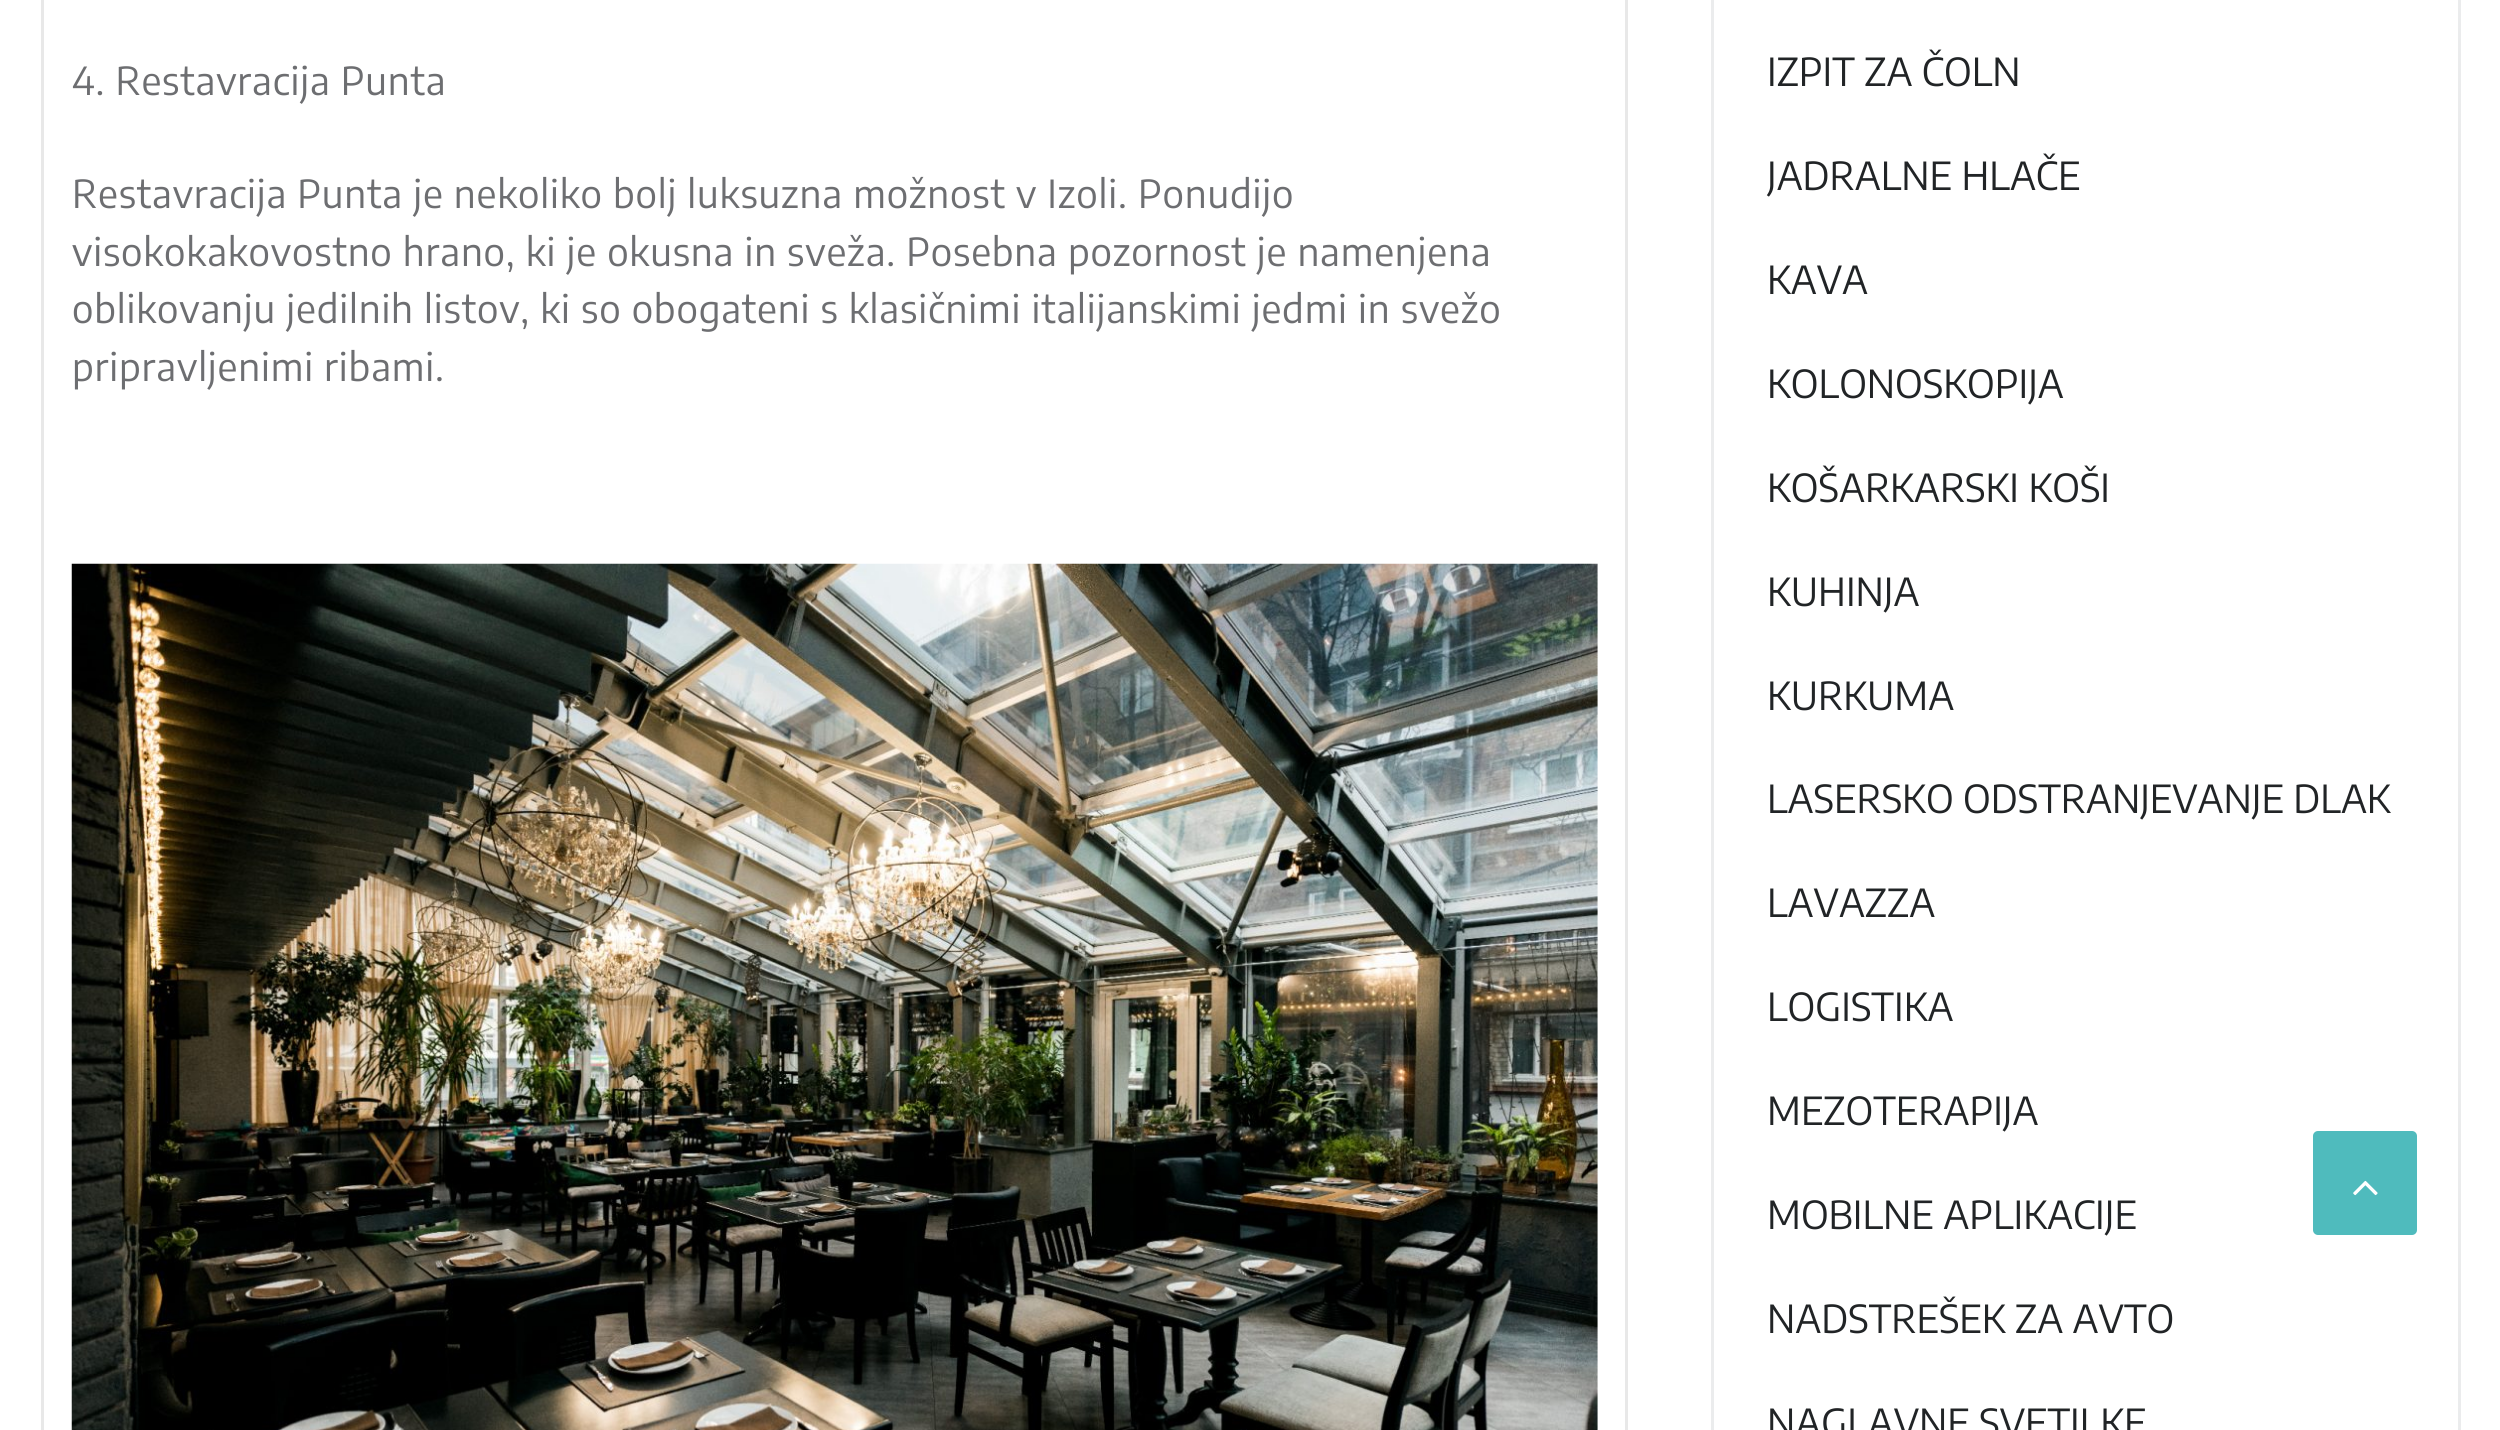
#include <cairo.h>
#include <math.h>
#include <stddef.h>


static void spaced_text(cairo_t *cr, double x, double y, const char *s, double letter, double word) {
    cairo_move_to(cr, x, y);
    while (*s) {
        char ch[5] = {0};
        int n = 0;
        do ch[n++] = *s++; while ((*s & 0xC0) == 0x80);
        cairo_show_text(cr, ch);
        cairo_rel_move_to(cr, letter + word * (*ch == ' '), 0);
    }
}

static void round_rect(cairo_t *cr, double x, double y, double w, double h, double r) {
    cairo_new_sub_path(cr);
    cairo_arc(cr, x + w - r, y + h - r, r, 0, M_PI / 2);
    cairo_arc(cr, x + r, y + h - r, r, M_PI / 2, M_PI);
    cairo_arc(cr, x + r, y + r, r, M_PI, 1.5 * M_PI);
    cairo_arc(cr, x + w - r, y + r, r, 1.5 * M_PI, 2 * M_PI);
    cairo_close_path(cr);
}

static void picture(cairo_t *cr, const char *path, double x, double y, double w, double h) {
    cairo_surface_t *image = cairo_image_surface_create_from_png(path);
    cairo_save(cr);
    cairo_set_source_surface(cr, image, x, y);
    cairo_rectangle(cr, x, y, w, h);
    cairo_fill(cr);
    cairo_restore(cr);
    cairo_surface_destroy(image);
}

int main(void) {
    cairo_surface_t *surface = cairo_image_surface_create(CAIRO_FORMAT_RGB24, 2500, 1430);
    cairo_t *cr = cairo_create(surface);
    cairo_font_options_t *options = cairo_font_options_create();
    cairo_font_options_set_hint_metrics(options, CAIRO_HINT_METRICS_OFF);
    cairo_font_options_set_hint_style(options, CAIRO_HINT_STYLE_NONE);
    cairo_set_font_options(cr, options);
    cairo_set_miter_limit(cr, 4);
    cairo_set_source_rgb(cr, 1, 1, 1);
    cairo_paint(cr);
    cairo_rectangle(cr, 42.5, -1.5, 1584, 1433);
    cairo_set_source_rgb(cr, 0.91, 0.91, 0.91);
    cairo_set_line_width(cr, 3);
    cairo_stroke(cr);
    cairo_select_font_face(cr, "Encode Sans Condensed", CAIRO_FONT_SLANT_NORMAL, CAIRO_FONT_WEIGHT_NORMAL);
    cairo_set_font_size(cr, 38.5);
    cairo_set_source_rgb(cr, 0.427, 0.431, 0.443);
    spaced_text(cr, 72, 95, "4. Restavracija Punta", 0.82, 0);
    spaced_text(cr, 72, 208, "Restavracija Punta je nekoliko bolj luksuzna možnost v Izoli. Ponudijo", 0.82, 0);
    spaced_text(cr, 72, 266, "visokokakovostno hrano, ki je okusna in sveža. Posebna pozornost je namenjena", 0.82, 0);
    spaced_text(cr, 72, 323, "oblikovanju jedilnih listov, ki so obogateni s klasičnimi italijanskimi jedmi in svežo", 0.82, 0);
    spaced_text(cr, 72, 381, "pripravljenimi ribami.", 0.82, 0);
    picture(cr, "img1.png", 71, 563, 1527, 867);
    cairo_rectangle(cr, 1712.5, -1.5, 747, 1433);
    cairo_set_source_rgb(cr, 0.918, 0.922, 0.929);
    cairo_stroke(cr);
    cairo_set_source_rgb(cr, 0.129, 0.141, 0.149);
    cairo_move_to(cr, 1767, 86);
    cairo_show_text(cr, "IZPIT ZA ČOLN");
    cairo_move_to(cr, 1767, 190);
    cairo_show_text(cr, "JADRALNE HLAČE");
    cairo_move_to(cr, 1767, 294);
    cairo_show_text(cr, "KAVA");
    cairo_move_to(cr, 1767, 398);
    cairo_show_text(cr, "KOLONOSKOPIJA");
    cairo_move_to(cr, 1767, 502);
    cairo_show_text(cr, "KOŠARKARSKI KOŠI");
    cairo_move_to(cr, 1767, 606);
    cairo_show_text(cr, "KUHINJA");
    cairo_move_to(cr, 1767, 710);
    cairo_show_text(cr, "KURKUMA");
    cairo_move_to(cr, 1767, 813);
    cairo_show_text(cr, "LASERSKO ODSTRANJEVANJE DLAK");
    cairo_move_to(cr, 1767, 917);
    cairo_show_text(cr, "LAVAZZA");
    cairo_move_to(cr, 1767, 1021);
    cairo_show_text(cr, "LOGISTIKA");
    cairo_move_to(cr, 1767, 1125);
    cairo_show_text(cr, "MEZOTERAPIJA");
    cairo_move_to(cr, 1767, 1229);
    cairo_show_text(cr, "MOBILNE APLIKACIJE");
    cairo_move_to(cr, 1767, 1333);
    cairo_show_text(cr, "NADSTREŠEK ZA AVTO");
    cairo_move_to(cr, 1767, 1437);
    cairo_show_text(cr, "NAGLAVNE SVETILKE");
    cairo_set_source_rgb(cr, 0.31, 0.733, 0.741);
    round_rect(cr, 2311.5, 1129.5, 107, 107, 6.5);
    cairo_fill_preserve(cr);
    cairo_set_source_rgb(cr, 1, 1, 1);
    cairo_stroke(cr);
    picture(cr, "img2.png", 2353, 1180, 25, 16);
    cairo_surface_write_to_png(surface, "page.png");
    cairo_font_options_destroy(options);
    cairo_destroy(cr);
    cairo_surface_destroy(surface);
    return 0;
}
